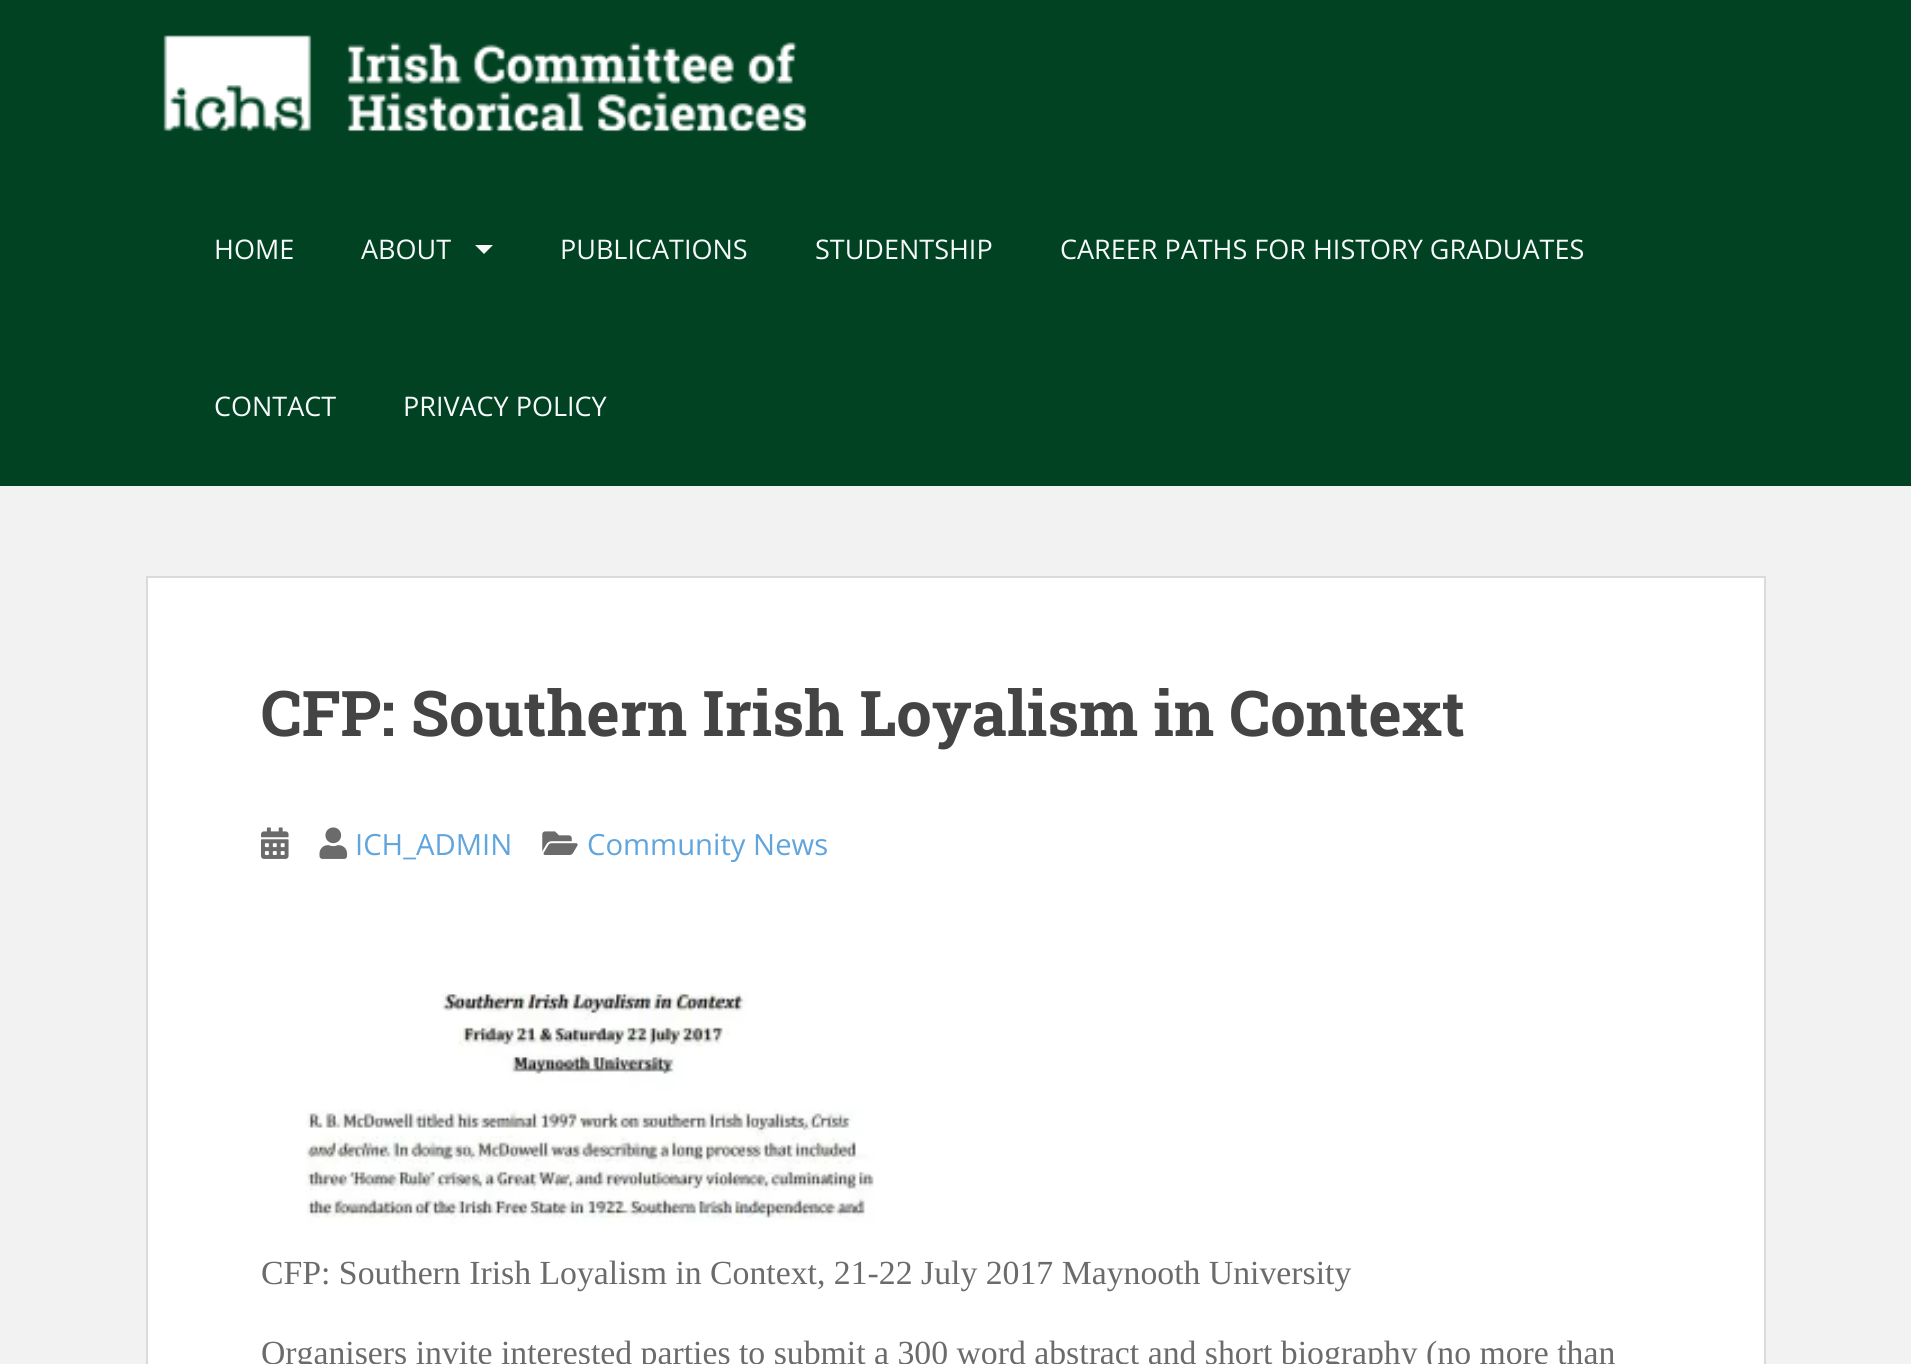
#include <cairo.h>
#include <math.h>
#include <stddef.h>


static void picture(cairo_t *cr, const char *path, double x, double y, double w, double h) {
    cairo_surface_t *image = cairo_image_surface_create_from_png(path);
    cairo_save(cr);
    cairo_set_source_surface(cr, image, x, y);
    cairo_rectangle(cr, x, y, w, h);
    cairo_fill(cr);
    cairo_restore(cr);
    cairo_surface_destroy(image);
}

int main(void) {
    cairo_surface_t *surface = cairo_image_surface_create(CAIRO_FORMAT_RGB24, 1911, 1364);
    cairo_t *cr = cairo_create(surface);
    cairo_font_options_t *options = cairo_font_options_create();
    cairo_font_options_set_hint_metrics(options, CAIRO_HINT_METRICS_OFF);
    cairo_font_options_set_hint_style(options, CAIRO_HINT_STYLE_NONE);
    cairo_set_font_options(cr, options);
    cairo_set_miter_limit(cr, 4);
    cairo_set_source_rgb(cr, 0.949, 0.949, 0.949);
    cairo_paint(cr);
    cairo_set_source_rgb(cr, 0.004, 0.259, 0.137);
    cairo_rectangle(cr, 0, 0, 1911, 486);
    cairo_fill(cr);
    picture(cr, "img1.png", 163, 35, 644, 97);
    cairo_select_font_face(cr, "Open Sans", CAIRO_FONT_SLANT_NORMAL, CAIRO_FONT_WEIGHT_NORMAL);
    cairo_set_font_size(cr, 27);
    cairo_set_source_rgb(cr, 0.961, 0.969, 0.98);
    cairo_move_to(cr, 214, 259);
    cairo_show_text(cr, "HOME");
    cairo_move_to(cr, 361, 259);
    cairo_show_text(cr, "ABOUT");
    cairo_new_path(cr);
    cairo_move_to(cr, 475, 245);
    cairo_line_to(cr, 493, 245);
    cairo_line_to(cr, 484, 254);
    cairo_close_path(cr);
    cairo_fill(cr);
    cairo_move_to(cr, 560, 259);
    cairo_show_text(cr, "PUBLICATIONS");
    cairo_move_to(cr, 815, 259);
    cairo_show_text(cr, "STUDENTSHIP");
    cairo_move_to(cr, 1060, 259);
    cairo_show_text(cr, "CAREER PATHS FOR HISTORY GRADUATES");
    cairo_move_to(cr, 214, 416);
    cairo_show_text(cr, "CONTACT");
    cairo_move_to(cr, 403, 416);
    cairo_show_text(cr, "PRIVACY POLICY");
    cairo_set_source_rgb(cr, 1, 1, 1);
    cairo_rectangle(cr, 147, 577, 1618, 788);
    cairo_fill_preserve(cr);
    cairo_set_source_rgb(cr, 0.855, 0.855, 0.855);
    cairo_stroke(cr);
    cairo_select_font_face(cr, "Roboto Slab", CAIRO_FONT_SLANT_NORMAL, CAIRO_FONT_WEIGHT_BOLD);
    cairo_set_font_size(cr, 63);
    cairo_set_source_rgb(cr, 0.267, 0.267, 0.267);
    cairo_move_to(cr, 261, 736);
    cairo_show_text(cr, "CFP: Southern Irish Loyalism in Context");
    picture(cr, "img2.png", 261, 827, 28, 32);
    picture(cr, "img3.png", 319, 827, 29, 32);
    cairo_select_font_face(cr, "Open Sans", CAIRO_FONT_SLANT_NORMAL, CAIRO_FONT_WEIGHT_NORMAL);
    cairo_set_font_size(cr, 29.25);
    cairo_set_source_rgb(cr, 0.38, 0.647, 0.867);
    cairo_move_to(cr, 355, 855);
    cairo_show_text(cr, "ICH_ADMIN");
    picture(cr, "img4.png", 542, 831, 36, 24);
    cairo_move_to(cr, 587, 855);
    cairo_show_text(cr, "Community News");
    picture(cr, "img5.png", 305, 991, 569, 233);
    cairo_select_font_face(cr, "Liberation Serif", CAIRO_FONT_SLANT_NORMAL, CAIRO_FONT_WEIGHT_NORMAL);
    cairo_set_font_size(cr, 33.75);
    cairo_set_source_rgb(cr, 0.42, 0.42, 0.42);
    cairo_move_to(cr, 261, 1284);
    cairo_show_text(cr, "CFP: Southern Irish Loyalism in Context, 21-22 July 2017 Maynooth University");
    cairo_move_to(cr, 261, 1364);
    cairo_show_text(cr, "Organisers invite interested parties to submit a 300 word abstract and short biography (no more than");
    cairo_surface_write_to_png(surface, "page.png");
    cairo_font_options_destroy(options);
    cairo_destroy(cr);
    cairo_surface_destroy(surface);
    return 0;
}
